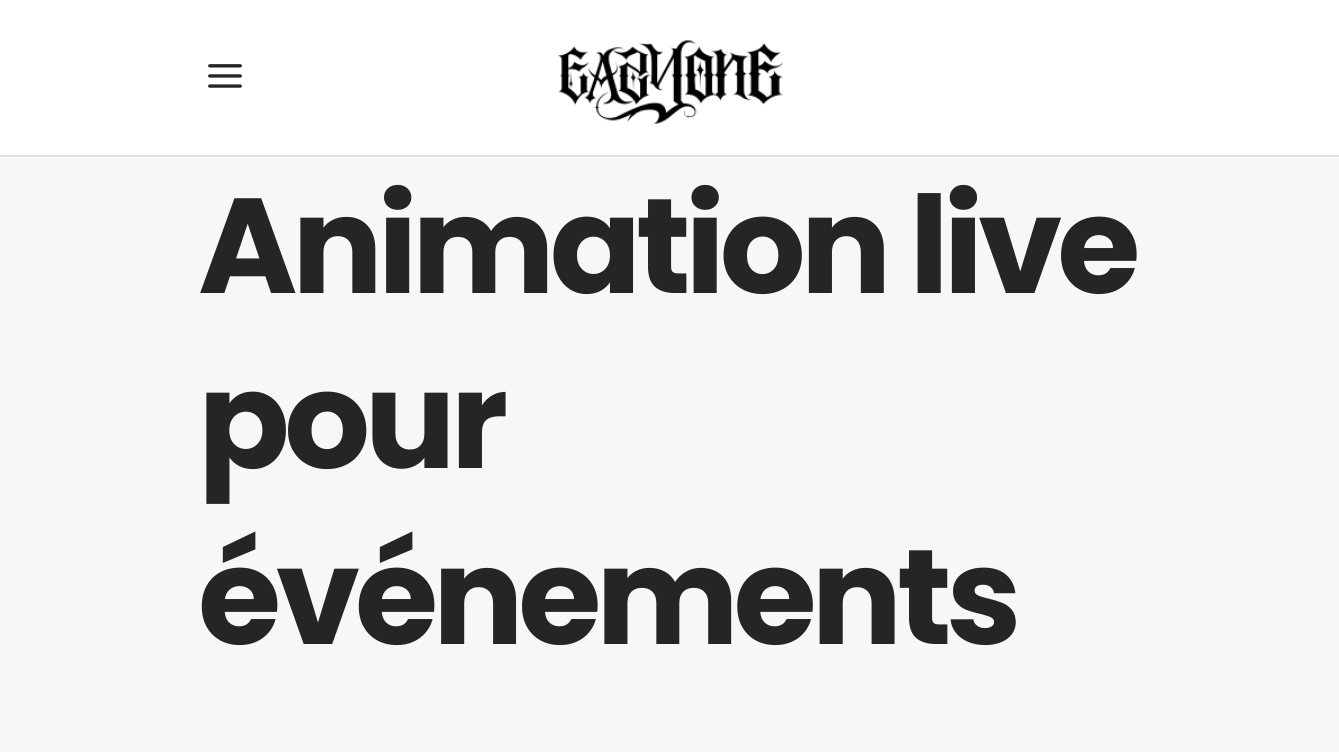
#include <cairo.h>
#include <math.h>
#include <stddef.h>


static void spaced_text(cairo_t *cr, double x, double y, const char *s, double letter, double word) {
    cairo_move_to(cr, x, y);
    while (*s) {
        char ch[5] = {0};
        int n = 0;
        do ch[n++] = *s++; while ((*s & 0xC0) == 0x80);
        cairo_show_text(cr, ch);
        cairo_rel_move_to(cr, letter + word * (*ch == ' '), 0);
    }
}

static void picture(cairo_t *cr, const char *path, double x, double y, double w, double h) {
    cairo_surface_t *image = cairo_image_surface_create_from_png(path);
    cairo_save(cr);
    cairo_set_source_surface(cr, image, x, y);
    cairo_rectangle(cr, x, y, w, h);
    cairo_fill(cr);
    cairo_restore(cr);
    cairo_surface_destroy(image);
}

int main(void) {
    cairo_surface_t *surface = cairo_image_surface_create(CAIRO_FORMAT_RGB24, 1339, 752);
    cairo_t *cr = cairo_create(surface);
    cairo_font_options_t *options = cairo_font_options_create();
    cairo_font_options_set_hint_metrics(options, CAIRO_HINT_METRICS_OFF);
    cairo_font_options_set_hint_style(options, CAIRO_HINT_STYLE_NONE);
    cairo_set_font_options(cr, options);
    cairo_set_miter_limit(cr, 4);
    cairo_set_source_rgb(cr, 0.965, 0.965, 0.965);
    cairo_paint(cr);
    cairo_set_source_rgb(cr, 1, 1, 1);
    cairo_rectangle(cr, 0, 0, 1339, 158);
    cairo_fill(cr);
    cairo_set_source_rgb(cr, 0.882, 0.882, 0.882);
    cairo_rectangle(cr, 0, 155, 1339, 2);
    cairo_fill(cr);
    picture(cr, "img1.png", 208, 64, 34, 24);
    picture(cr, "img2.png", 558, 40, 225, 84);
    cairo_select_font_face(cr, "Poppins", CAIRO_FONT_SLANT_NORMAL, CAIRO_FONT_WEIGHT_BOLD);
    cairo_set_font_size(cr, 135);
    cairo_set_source_rgb(cr, 0.145, 0.145, 0.145);
    spaced_text(cr, 198, 293, "Animation live", -5.4, 0);
    spaced_text(cr, 198, 468, "pour", -5.4, 0);
    spaced_text(cr, 198, 644, "événements", -5.4, 0);
    cairo_surface_write_to_png(surface, "page.png");
    cairo_font_options_destroy(options);
    cairo_destroy(cr);
    cairo_surface_destroy(surface);
    return 0;
}
